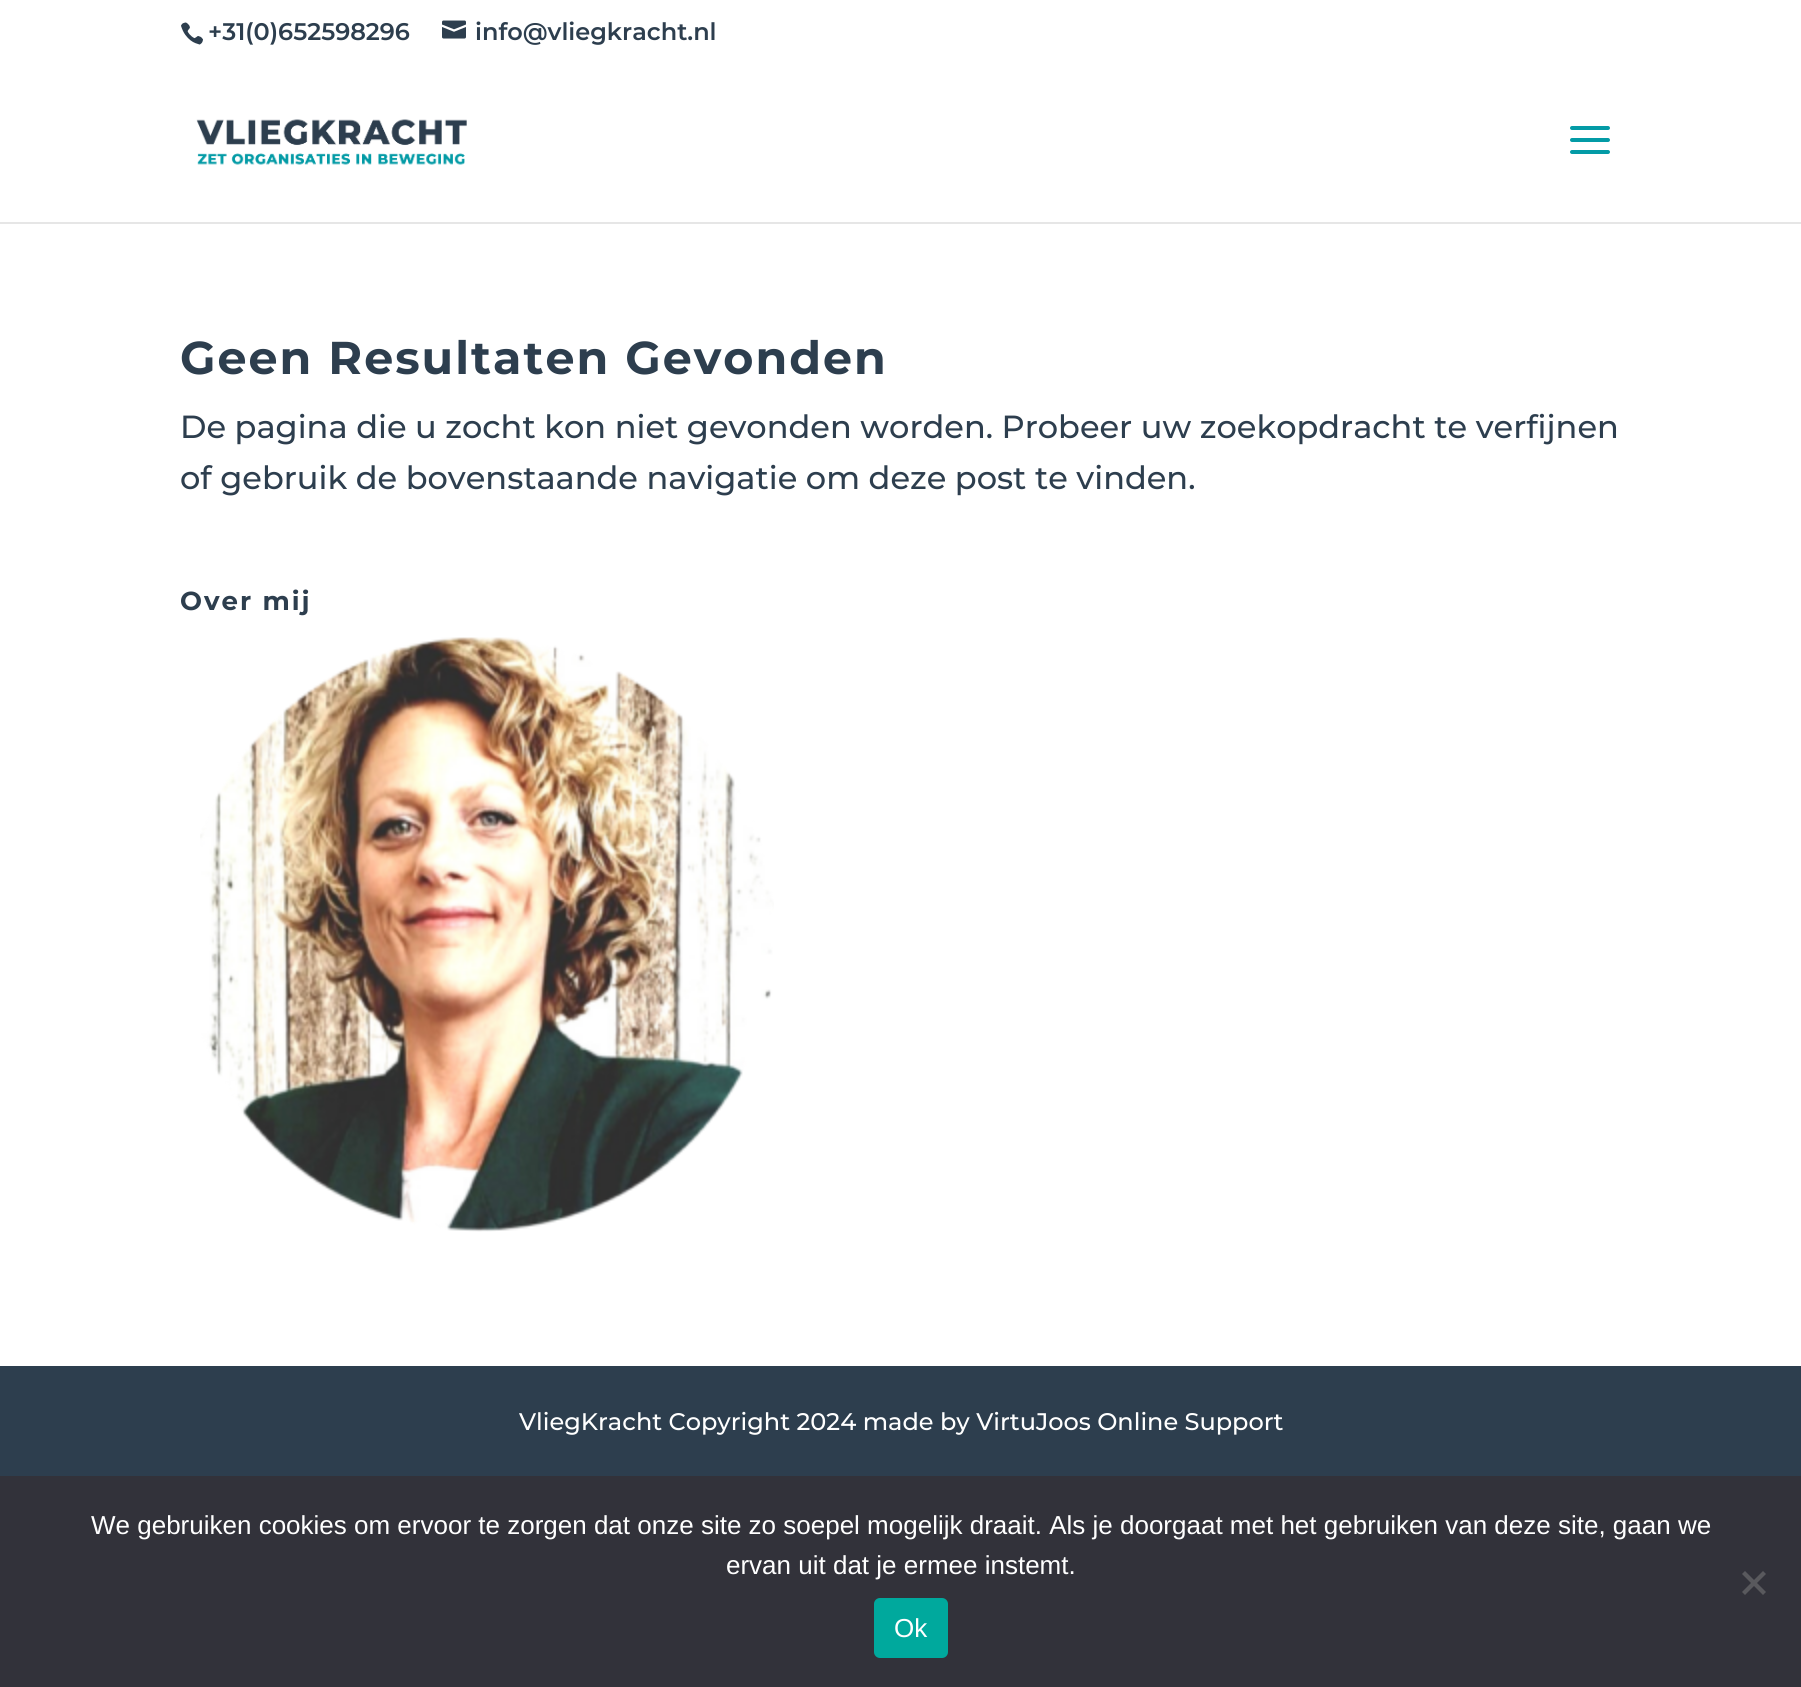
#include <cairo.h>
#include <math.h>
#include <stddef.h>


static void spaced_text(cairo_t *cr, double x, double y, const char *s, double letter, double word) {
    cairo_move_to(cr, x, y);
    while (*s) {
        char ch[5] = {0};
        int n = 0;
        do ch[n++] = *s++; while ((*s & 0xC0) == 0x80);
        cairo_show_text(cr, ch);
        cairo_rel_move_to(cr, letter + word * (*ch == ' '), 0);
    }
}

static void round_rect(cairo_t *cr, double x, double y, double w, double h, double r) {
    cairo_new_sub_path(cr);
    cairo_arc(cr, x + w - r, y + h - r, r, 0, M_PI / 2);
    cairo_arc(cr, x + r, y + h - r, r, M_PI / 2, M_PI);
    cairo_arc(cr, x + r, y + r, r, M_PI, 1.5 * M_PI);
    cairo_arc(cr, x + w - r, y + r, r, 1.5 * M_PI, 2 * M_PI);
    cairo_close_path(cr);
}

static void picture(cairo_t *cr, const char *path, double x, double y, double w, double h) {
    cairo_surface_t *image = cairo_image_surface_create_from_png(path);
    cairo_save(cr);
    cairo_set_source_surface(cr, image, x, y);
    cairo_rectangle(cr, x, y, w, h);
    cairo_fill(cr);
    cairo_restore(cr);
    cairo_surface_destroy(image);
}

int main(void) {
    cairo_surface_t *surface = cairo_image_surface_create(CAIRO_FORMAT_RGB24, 1801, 1687);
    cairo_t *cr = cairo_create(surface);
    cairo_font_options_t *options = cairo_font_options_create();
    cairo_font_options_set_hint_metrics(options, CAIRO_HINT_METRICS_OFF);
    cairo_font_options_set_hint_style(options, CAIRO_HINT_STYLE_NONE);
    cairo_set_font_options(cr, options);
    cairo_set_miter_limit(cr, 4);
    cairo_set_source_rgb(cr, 1, 1, 1);
    cairo_paint(cr);
    picture(cr, "img1.png", 181, 22, 22, 23);
    cairo_select_font_face(cr, "Montserrat SemiBold", CAIRO_FONT_SLANT_NORMAL, CAIRO_FONT_WEIGHT_NORMAL);
    cairo_set_font_size(cr, 24);
    cairo_set_source_rgb(cr, 0.176, 0.243, 0.306);
    cairo_move_to(cr, 208, 40);
    cairo_show_text(cr, "+31(0)652598296");
    picture(cr, "img2.png", 442, 20, 24, 19);
    cairo_move_to(cr, 475, 40);
    cairo_show_text(cr, "info@vliegkracht.nl");
    cairo_set_source_rgb(cr, 0.902, 0.902, 0.902);
    cairo_rectangle(cr, 0, 222, 1801, 2);
    cairo_fill(cr);
    picture(cr, "img3.png", 196, 119, 271, 46);
    picture(cr, "img4.png", 1570, 126, 40, 28);
    cairo_select_font_face(cr, "Montserrat", CAIRO_FONT_SLANT_NORMAL, CAIRO_FONT_WEIGHT_BOLD);
    cairo_set_font_size(cr, 46);
    cairo_set_source_rgb(cr, 0.176, 0.243, 0.306);
    spaced_text(cr, 180, 374, "Geen Resultaten Gevonden", 2, 0);
    cairo_select_font_face(cr, "Montserrat Medium", CAIRO_FONT_SLANT_NORMAL, CAIRO_FONT_WEIGHT_NORMAL);
    cairo_set_font_size(cr, 32);
    cairo_move_to(cr, 180, 438);
    cairo_show_text(cr, "De pagina die u zocht kon niet gevonden worden. Probeer uw zoekopdracht te verfijnen");
    cairo_move_to(cr, 180, 489);
    cairo_show_text(cr, "of gebruik de bovenstaande navigatie om deze post te vinden.");
    cairo_select_font_face(cr, "Montserrat", CAIRO_FONT_SLANT_NORMAL, CAIRO_FONT_WEIGHT_BOLD);
    cairo_set_font_size(cr, 26);
    spaced_text(cr, 180, 610, "Over mij", 2, 0);
    picture(cr, "img5.png", 200, 637, 574, 595);
    cairo_rectangle(cr, 0, 1366, 1801, 110);
    cairo_fill(cr);
    cairo_select_font_face(cr, "Montserrat Medium", CAIRO_FONT_SLANT_NORMAL, CAIRO_FONT_WEIGHT_NORMAL);
    cairo_set_font_size(cr, 24);
    cairo_set_source_rgb(cr, 1, 1, 1);
    cairo_move_to(cr, 519, 1430);
    cairo_show_text(cr, "VliegKracht Copyright 2024 made by VirtuJoos Online Support");
    cairo_set_source_rgb(cr, 0.196, 0.196, 0.227);
    cairo_rectangle(cr, 0, 1476, 1801, 211);
    cairo_fill(cr);
    cairo_select_font_face(cr, "Liberation Sans", CAIRO_FONT_SLANT_NORMAL, CAIRO_FONT_WEIGHT_NORMAL);
    cairo_set_font_size(cr, 26);
    cairo_set_source_rgb(cr, 1, 1, 1);
    cairo_move_to(cr, 91, 1534);
    cairo_show_text(cr, "We gebruiken cookies om ervoor te zorgen dat onze site zo soepel mogelijk draait. Als je doorgaat met het gebruiken van deze site, gaan we");
    cairo_move_to(cr, 726, 1574);
    cairo_show_text(cr, "ervan uit dat je ermee instemt.");
    cairo_set_source_rgb(cr, 0.349, 0.349, 0.365);
    cairo_new_path(cr);
    cairo_move_to(cr, 1763, 1571);
    cairo_line_to(cr, 1766, 1574);
    cairo_line_to(cr, 1745, 1595);
    cairo_line_to(cr, 1742, 1592);
    cairo_close_path(cr);
    cairo_fill(cr);
    cairo_new_path(cr);
    cairo_move_to(cr, 1742, 1574);
    cairo_line_to(cr, 1745, 1571);
    cairo_line_to(cr, 1766, 1592);
    cairo_line_to(cr, 1763, 1595);
    cairo_close_path(cr);
    cairo_fill(cr);
    cairo_set_source_rgb(cr, 0, 0.663, 0.616);
    round_rect(cr, 874, 1598, 74, 60, 6);
    cairo_fill(cr);
    cairo_set_source_rgb(cr, 1, 1, 1);
    cairo_move_to(cr, 894, 1637);
    cairo_show_text(cr, "Ok");
    cairo_surface_write_to_png(surface, "page.png");
    cairo_font_options_destroy(options);
    cairo_destroy(cr);
    cairo_surface_destroy(surface);
    return 0;
}
